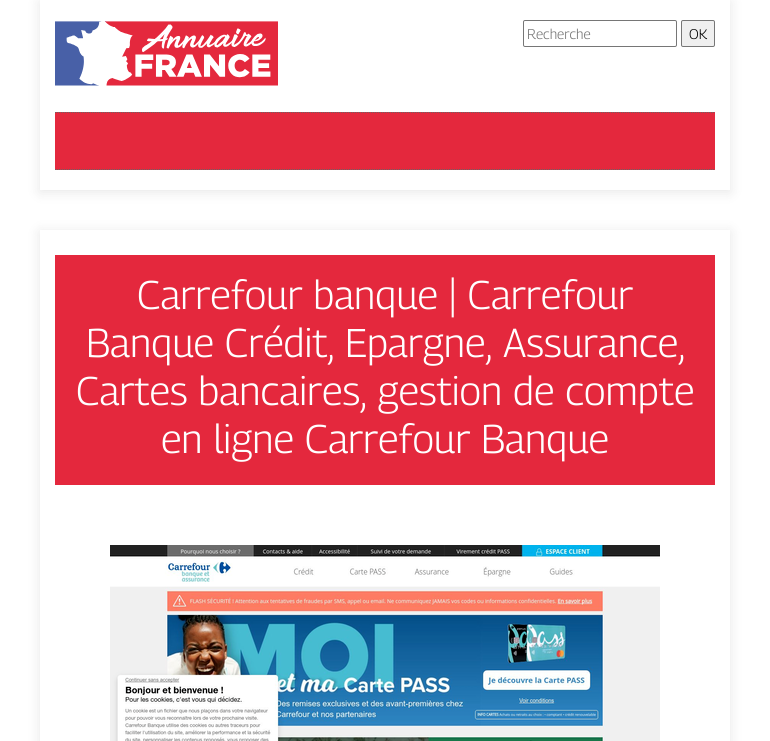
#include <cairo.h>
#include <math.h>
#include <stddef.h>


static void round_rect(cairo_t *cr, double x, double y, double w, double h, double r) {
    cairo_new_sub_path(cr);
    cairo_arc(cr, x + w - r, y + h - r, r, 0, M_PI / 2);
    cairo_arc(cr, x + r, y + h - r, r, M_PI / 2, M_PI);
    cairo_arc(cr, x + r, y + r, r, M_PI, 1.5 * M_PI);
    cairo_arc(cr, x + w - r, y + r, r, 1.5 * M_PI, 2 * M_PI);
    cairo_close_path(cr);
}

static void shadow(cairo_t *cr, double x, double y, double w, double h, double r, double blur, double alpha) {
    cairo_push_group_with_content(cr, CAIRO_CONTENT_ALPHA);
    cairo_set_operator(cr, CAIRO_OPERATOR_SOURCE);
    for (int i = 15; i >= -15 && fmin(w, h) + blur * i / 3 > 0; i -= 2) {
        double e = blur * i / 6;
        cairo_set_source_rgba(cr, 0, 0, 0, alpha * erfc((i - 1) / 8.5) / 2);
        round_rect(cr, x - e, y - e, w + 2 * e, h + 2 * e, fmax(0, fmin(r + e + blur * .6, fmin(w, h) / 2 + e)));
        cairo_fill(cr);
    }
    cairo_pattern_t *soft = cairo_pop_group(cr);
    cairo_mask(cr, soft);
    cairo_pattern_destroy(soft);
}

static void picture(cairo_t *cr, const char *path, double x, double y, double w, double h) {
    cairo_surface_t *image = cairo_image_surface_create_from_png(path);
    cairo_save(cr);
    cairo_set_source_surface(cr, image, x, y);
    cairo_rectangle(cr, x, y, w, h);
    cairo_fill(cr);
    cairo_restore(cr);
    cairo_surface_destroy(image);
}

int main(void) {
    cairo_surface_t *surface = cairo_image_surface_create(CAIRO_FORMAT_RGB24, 770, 741);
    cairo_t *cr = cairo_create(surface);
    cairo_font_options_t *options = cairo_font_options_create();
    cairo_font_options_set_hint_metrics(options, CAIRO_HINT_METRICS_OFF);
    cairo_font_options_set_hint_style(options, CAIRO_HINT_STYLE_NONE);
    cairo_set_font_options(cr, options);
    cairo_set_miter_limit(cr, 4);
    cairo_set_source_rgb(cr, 1, 1, 1);
    cairo_paint(cr);
    cairo_save(cr);
    cairo_set_fill_rule(cr, CAIRO_FILL_RULE_EVEN_ODD);
    cairo_new_path(cr);
    cairo_move_to(cr, 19, 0);
    cairo_line_to(cr, 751, 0);
    cairo_line_to(cr, 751, 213);
    cairo_line_to(cr, 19, 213);
    cairo_close_path(cr);
    cairo_move_to(cr, 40, 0);
    cairo_line_to(cr, 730, 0);
    cairo_line_to(cr, 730, 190);
    cairo_line_to(cr, 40, 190);
    cairo_close_path(cr);
    cairo_clip(cr);
    cairo_set_source_rgb(cr, 0, 0, 0);
    shadow(cr, 40, 2, 690, 190, 0, 6.5, 0.1);
    cairo_restore(cr);
    picture(cr, "img1.png", 55, 21, 223, 65);
    round_rect(cr, 523.5, 20.5, 153, 26, 1.5);
    cairo_set_source_rgb(cr, 0.463, 0.463, 0.463);
    cairo_set_line_width(cr, 1);
    cairo_stroke(cr);
    cairo_select_font_face(cr, "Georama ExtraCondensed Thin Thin", CAIRO_FONT_SLANT_NORMAL, CAIRO_FONT_WEIGHT_NORMAL);
    cairo_set_font_size(cr, 14);
    cairo_set_source_rgb(cr, 0.459, 0.459, 0.459);
    cairo_move_to(cr, 527, 39);
    cairo_show_text(cr, "Recherche");
    cairo_set_source_rgb(cr, 0.937, 0.937, 0.937);
    round_rect(cr, 681.5, 20.5, 33, 26, 1.5);
    cairo_fill_preserve(cr);
    cairo_set_source_rgb(cr, 0.463, 0.463, 0.463);
    cairo_stroke(cr);
    cairo_set_source_rgb(cr, 0, 0, 0);
    cairo_move_to(cr, 689, 39);
    cairo_show_text(cr, "OK");
    cairo_set_source_rgb(cr, 0.894, 0.157, 0.239);
    cairo_rectangle(cr, 55, 112, 660, 58);
    cairo_fill(cr);
    cairo_new_path(cr);
    cairo_move_to(cr, 55, 112.5);
    cairo_line_to(cr, 715, 112.5);
    cairo_set_source_rgb(cr, 0.4, 0.4, 0.4);
    cairo_set_dash(cr, (double[]){1, 1}, 2, 0);
    cairo_stroke(cr);
    cairo_new_path(cr);
    cairo_move_to(cr, 55, 169.5);
    cairo_line_to(cr, 715, 169.5);
    cairo_stroke(cr);
    cairo_save(cr);
    cairo_set_fill_rule(cr, CAIRO_FILL_RULE_EVEN_ODD);
    cairo_new_path(cr);
    cairo_move_to(cr, 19, 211);
    cairo_line_to(cr, 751, 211);
    cairo_line_to(cr, 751, 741);
    cairo_line_to(cr, 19, 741);
    cairo_close_path(cr);
    cairo_move_to(cr, 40, 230);
    cairo_line_to(cr, 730, 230);
    cairo_line_to(cr, 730, 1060);
    cairo_line_to(cr, 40, 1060);
    cairo_close_path(cr);
    cairo_clip(cr);
    cairo_set_source_rgb(cr, 0, 0, 0);
    shadow(cr, 40, 232, 690, 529, 0, 6.5, 0.1);
    cairo_restore(cr);
    cairo_set_source_rgb(cr, 0.894, 0.157, 0.239);
    cairo_rectangle(cr, 55, 255, 660, 230);
    cairo_fill(cr);
    cairo_set_font_size(cr, 40);
    cairo_set_source_rgb(cr, 1, 1, 1);
    cairo_move_to(cr, 137, 309);
    cairo_show_text(cr, "Carrefour banque | Carrefour");
    cairo_move_to(cr, 86, 357);
    cairo_show_text(cr, "Banque Crédit, Epargne, Assurance,");
    cairo_move_to(cr, 76, 405);
    cairo_show_text(cr, "Cartes bancaires, gestion de compte");
    cairo_move_to(cr, 161, 453);
    cairo_show_text(cr, "en ligne Carrefour Banque");
    picture(cr, "img2.png", 110, 545, 550, 196);
    cairo_surface_write_to_png(surface, "page.png");
    cairo_font_options_destroy(options);
    cairo_destroy(cr);
    cairo_surface_destroy(surface);
    return 0;
}
